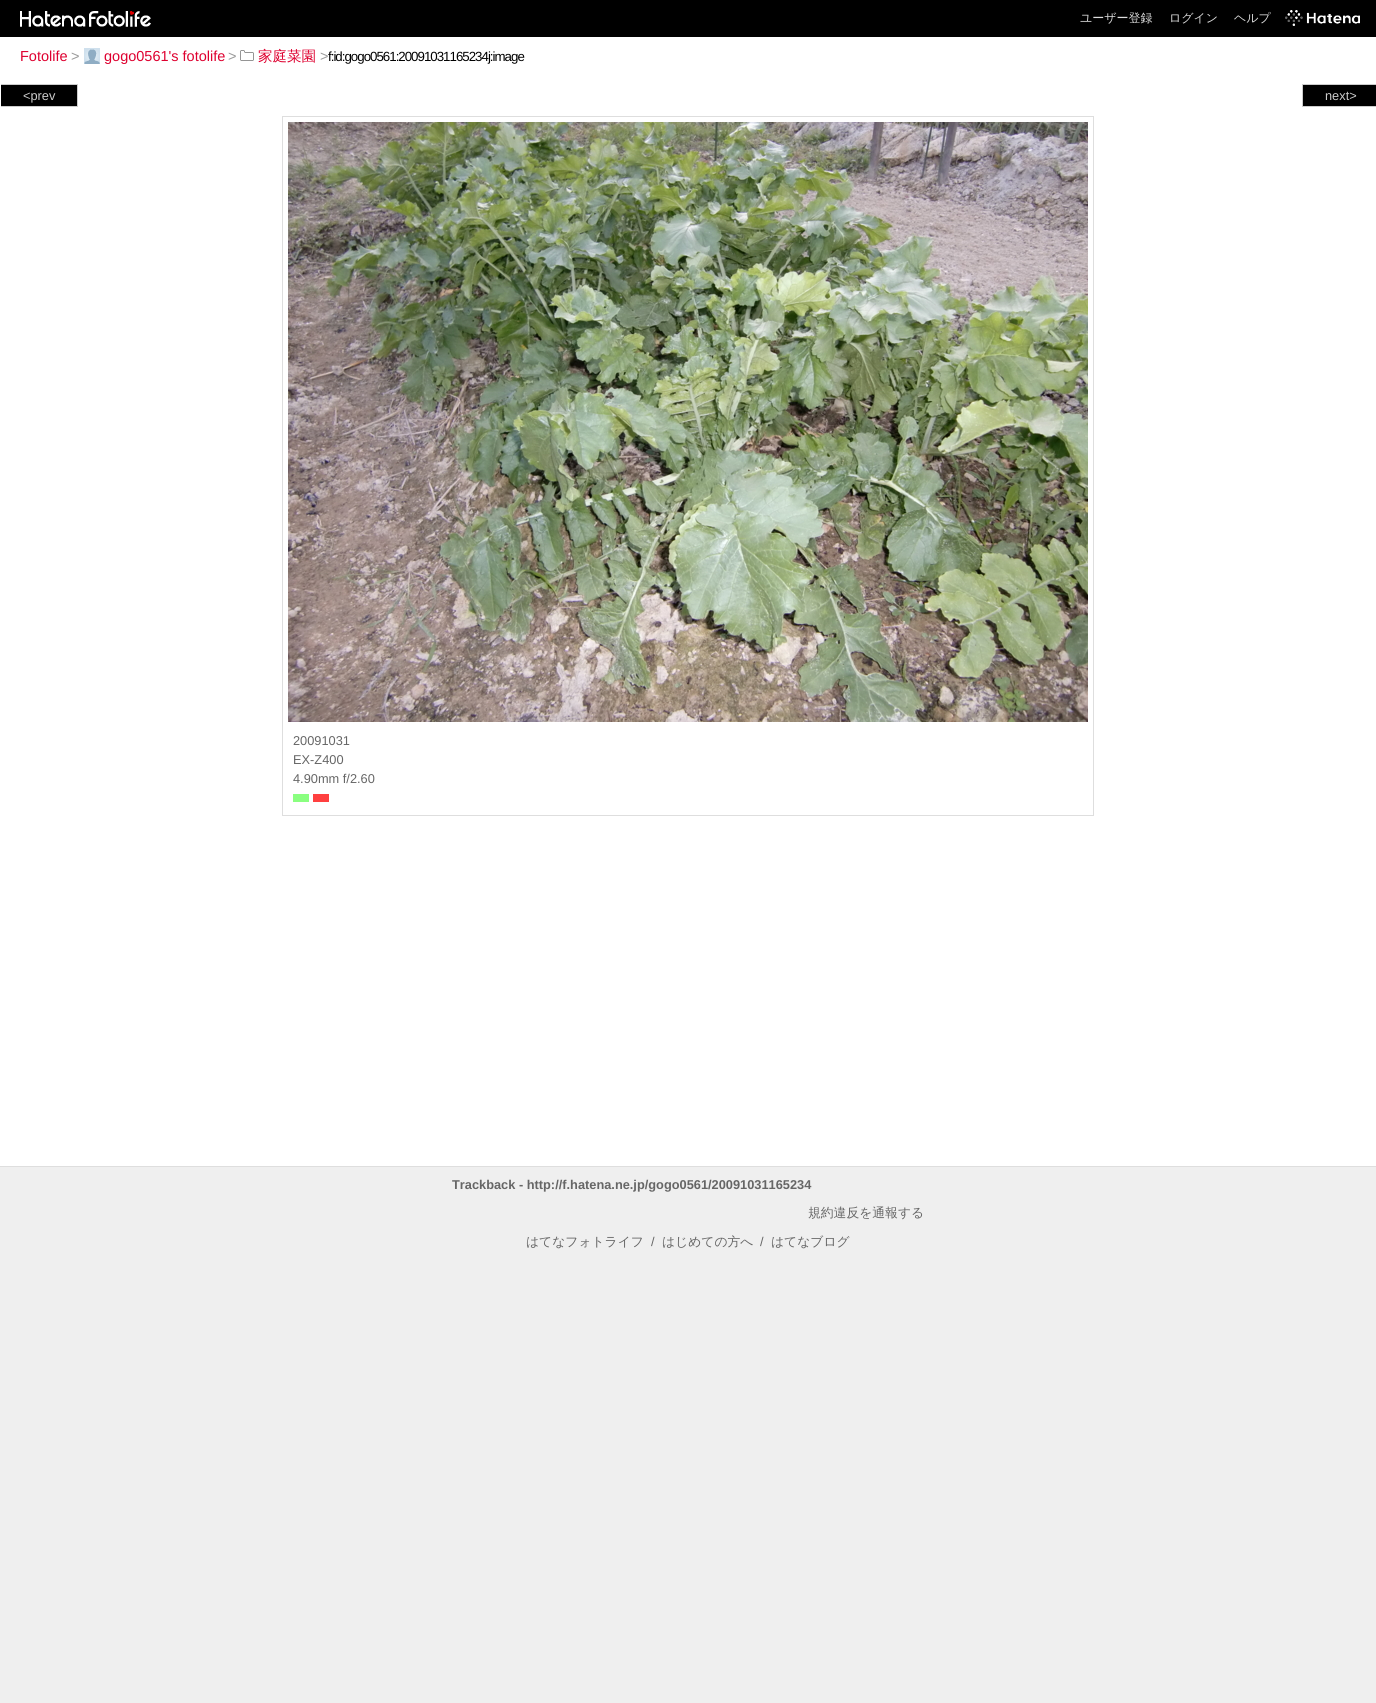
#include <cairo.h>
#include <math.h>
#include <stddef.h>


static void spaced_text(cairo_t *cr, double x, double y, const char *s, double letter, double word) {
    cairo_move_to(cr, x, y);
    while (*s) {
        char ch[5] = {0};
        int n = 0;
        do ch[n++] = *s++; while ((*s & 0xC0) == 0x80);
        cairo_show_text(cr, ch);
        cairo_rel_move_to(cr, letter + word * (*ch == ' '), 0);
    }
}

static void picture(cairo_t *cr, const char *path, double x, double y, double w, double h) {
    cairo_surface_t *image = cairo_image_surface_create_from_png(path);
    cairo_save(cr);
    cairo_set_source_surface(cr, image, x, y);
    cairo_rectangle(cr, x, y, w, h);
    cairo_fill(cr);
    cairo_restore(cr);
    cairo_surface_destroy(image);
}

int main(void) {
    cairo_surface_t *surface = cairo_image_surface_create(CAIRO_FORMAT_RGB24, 1376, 1703);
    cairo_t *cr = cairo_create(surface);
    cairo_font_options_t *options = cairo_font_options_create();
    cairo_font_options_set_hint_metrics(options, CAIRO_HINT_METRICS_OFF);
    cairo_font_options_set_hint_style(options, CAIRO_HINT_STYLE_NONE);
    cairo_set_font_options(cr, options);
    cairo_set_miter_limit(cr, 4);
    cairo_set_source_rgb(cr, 0.937, 0.937, 0.937);
    cairo_paint(cr);
    cairo_set_source_rgb(cr, 0, 0, 0);
    cairo_rectangle(cr, 0, 0, 1376, 37);
    cairo_fill(cr);
    picture(cr, "img1.png", 20, 11, 66, 16);
    picture(cr, "img2.png", 89, 11, 62, 16);
    cairo_select_font_face(cr, "WenQuanYi Zen Hei Medium", CAIRO_FONT_SLANT_NORMAL, CAIRO_FONT_WEIGHT_NORMAL);
    cairo_set_font_size(cr, 12);
    cairo_set_source_rgb(cr, 0.867, 0.867, 0.867);
    cairo_move_to(cr, 1080, 22);
    cairo_show_text(cr, "ユーザー登録");
    cairo_move_to(cr, 1169, 22);
    cairo_show_text(cr, "ログイン");
    cairo_move_to(cr, 1234, 22);
    cairo_show_text(cr, "ヘルプ");
    picture(cr, "img3.png", 1285, 10, 75, 16);
    cairo_set_source_rgb(cr, 1, 1, 1);
    cairo_rectangle(cr, 0, 37, 1376, 1129);
    cairo_fill(cr);
    cairo_select_font_face(cr, "Liberation Sans", CAIRO_FONT_SLANT_NORMAL, CAIRO_FONT_WEIGHT_NORMAL);
    cairo_set_font_size(cr, 14.5);
    cairo_set_source_rgb(cr, 0.871, 0, 0.184);
    cairo_move_to(cr, 20, 61);
    cairo_show_text(cr, "Fotolife");
    cairo_set_source_rgb(cr, 0.6, 0.6, 0.6);
    cairo_move_to(cr, 71, 61);
    cairo_show_text(cr, ">");
    picture(cr, "img4.png", 84, 48, 16, 16);
    cairo_set_source_rgb(cr, 0.871, 0, 0.184);
    cairo_move_to(cr, 104, 61);
    cairo_show_text(cr, "gogo0561's fotolife");
    cairo_set_source_rgb(cr, 0.6, 0.6, 0.6);
    cairo_move_to(cr, 228, 61);
    cairo_show_text(cr, ">");
    picture(cr, "img5.png", 240, 50, 14, 11);
    cairo_select_font_face(cr, "WenQuanYi Zen Hei Medium", CAIRO_FONT_SLANT_NORMAL, CAIRO_FONT_WEIGHT_NORMAL);
    cairo_set_source_rgb(cr, 0.871, 0, 0.184);
    cairo_move_to(cr, 258, 61);
    cairo_show_text(cr, "家庭菜園");
    cairo_select_font_face(cr, "Liberation Sans", CAIRO_FONT_SLANT_NORMAL, CAIRO_FONT_WEIGHT_NORMAL);
    cairo_set_source_rgb(cr, 0.6, 0.6, 0.6);
    cairo_move_to(cr, 320, 61);
    cairo_show_text(cr, ">");
    cairo_set_font_size(cr, 13.3);
    cairo_set_source_rgb(cr, 0, 0, 0);
    spaced_text(cr, 328, 61, "f:id:gogo0561:20091031165234j:image", -1, 0);
    cairo_set_source_rgb(cr, 0.871, 0.871, 0.871);
    cairo_rectangle(cr, 0, 1166, 1376, 1);
    cairo_fill(cr);
    cairo_set_source_rgb(cr, 0, 0, 0);
    cairo_rectangle(cr, 1, 85, 76, 21);
    cairo_fill(cr);
    cairo_set_source_rgb(cr, 0.8, 0.8, 0.8);
    cairo_rectangle(cr, 1, 84, 77, 1);
    cairo_fill(cr);
    cairo_rectangle(cr, 77, 84, 1, 23);
    cairo_fill(cr);
    cairo_rectangle(cr, 1, 106, 77, 1);
    cairo_fill(cr);
    cairo_set_font_size(cr, 12.8);
    cairo_move_to(cr, 23, 100);
    cairo_show_text(cr, "<prev");
    cairo_set_source_rgb(cr, 0, 0, 0);
    cairo_rectangle(cr, 1303, 85, 73, 21);
    cairo_fill(cr);
    cairo_set_source_rgb(cr, 0.8, 0.8, 0.8);
    cairo_rectangle(cr, 1302, 84, 74, 1);
    cairo_fill(cr);
    cairo_rectangle(cr, 1302, 106, 74, 1);
    cairo_fill(cr);
    cairo_rectangle(cr, 1302, 84, 1, 23);
    cairo_fill(cr);
    cairo_move_to(cr, 1325, 100);
    cairo_show_text(cr, "next>");
    cairo_rectangle(cr, 282.5, 116.5, 811, 699);
    cairo_set_source_rgb(cr, 0.871, 0.871, 0.871);
    cairo_set_line_width(cr, 1);
    cairo_stroke(cr);
    picture(cr, "img6.png", 288, 122, 800, 600);
    cairo_set_source_rgb(cr, 0.4, 0.4, 0.4);
    cairo_move_to(cr, 293, 745);
    cairo_show_text(cr, "20091031");
    cairo_move_to(cr, 293, 764);
    cairo_show_text(cr, "EX-Z400");
    cairo_move_to(cr, 293, 783);
    cairo_show_text(cr, "4.90mm f/2.60");
    cairo_set_source_rgb(cr, 0.541, 1, 0.502);
    cairo_rectangle(cr, 293, 794, 16, 8);
    cairo_fill(cr);
    cairo_set_source_rgb(cr, 1, 0.251, 0.251);
    cairo_rectangle(cr, 313, 794, 16, 8);
    cairo_fill(cr);
    cairo_select_font_face(cr, "Liberation Sans", CAIRO_FONT_SLANT_NORMAL, CAIRO_FONT_WEIGHT_BOLD);
    cairo_set_source_rgb(cr, 0.4, 0.4, 0.4);
    cairo_move_to(cr, 452, 1189);
    cairo_show_text(cr, "Trackback - http://f.hatena.ne.jp/gogo0561/20091031165234");
    cairo_select_font_face(cr, "WenQuanYi Zen Hei Medium", CAIRO_FONT_SLANT_NORMAL, CAIRO_FONT_WEIGHT_NORMAL);
    cairo_move_to(cr, 808, 1217);
    cairo_show_text(cr, "規約違反を通報する");
    cairo_move_to(cr, 526, 1246);
    cairo_show_text(cr, "はてなフォトライフ");
    cairo_select_font_face(cr, "Liberation Sans", CAIRO_FONT_SLANT_NORMAL, CAIRO_FONT_WEIGHT_NORMAL);
    cairo_move_to(cr, 651, 1246);
    cairo_show_text(cr, "/");
    cairo_select_font_face(cr, "WenQuanYi Zen Hei Medium", CAIRO_FONT_SLANT_NORMAL, CAIRO_FONT_WEIGHT_NORMAL);
    cairo_move_to(cr, 662, 1246);
    cairo_show_text(cr, "はじめての方へ");
    cairo_select_font_face(cr, "Liberation Sans", CAIRO_FONT_SLANT_NORMAL, CAIRO_FONT_WEIGHT_NORMAL);
    cairo_move_to(cr, 760, 1246);
    cairo_show_text(cr, "/");
    cairo_select_font_face(cr, "WenQuanYi Zen Hei Medium", CAIRO_FONT_SLANT_NORMAL, CAIRO_FONT_WEIGHT_NORMAL);
    cairo_move_to(cr, 771, 1246);
    cairo_show_text(cr, "はてなブログ");
    cairo_surface_write_to_png(surface, "page.png");
    cairo_font_options_destroy(options);
    cairo_destroy(cr);
    cairo_surface_destroy(surface);
    return 0;
}
